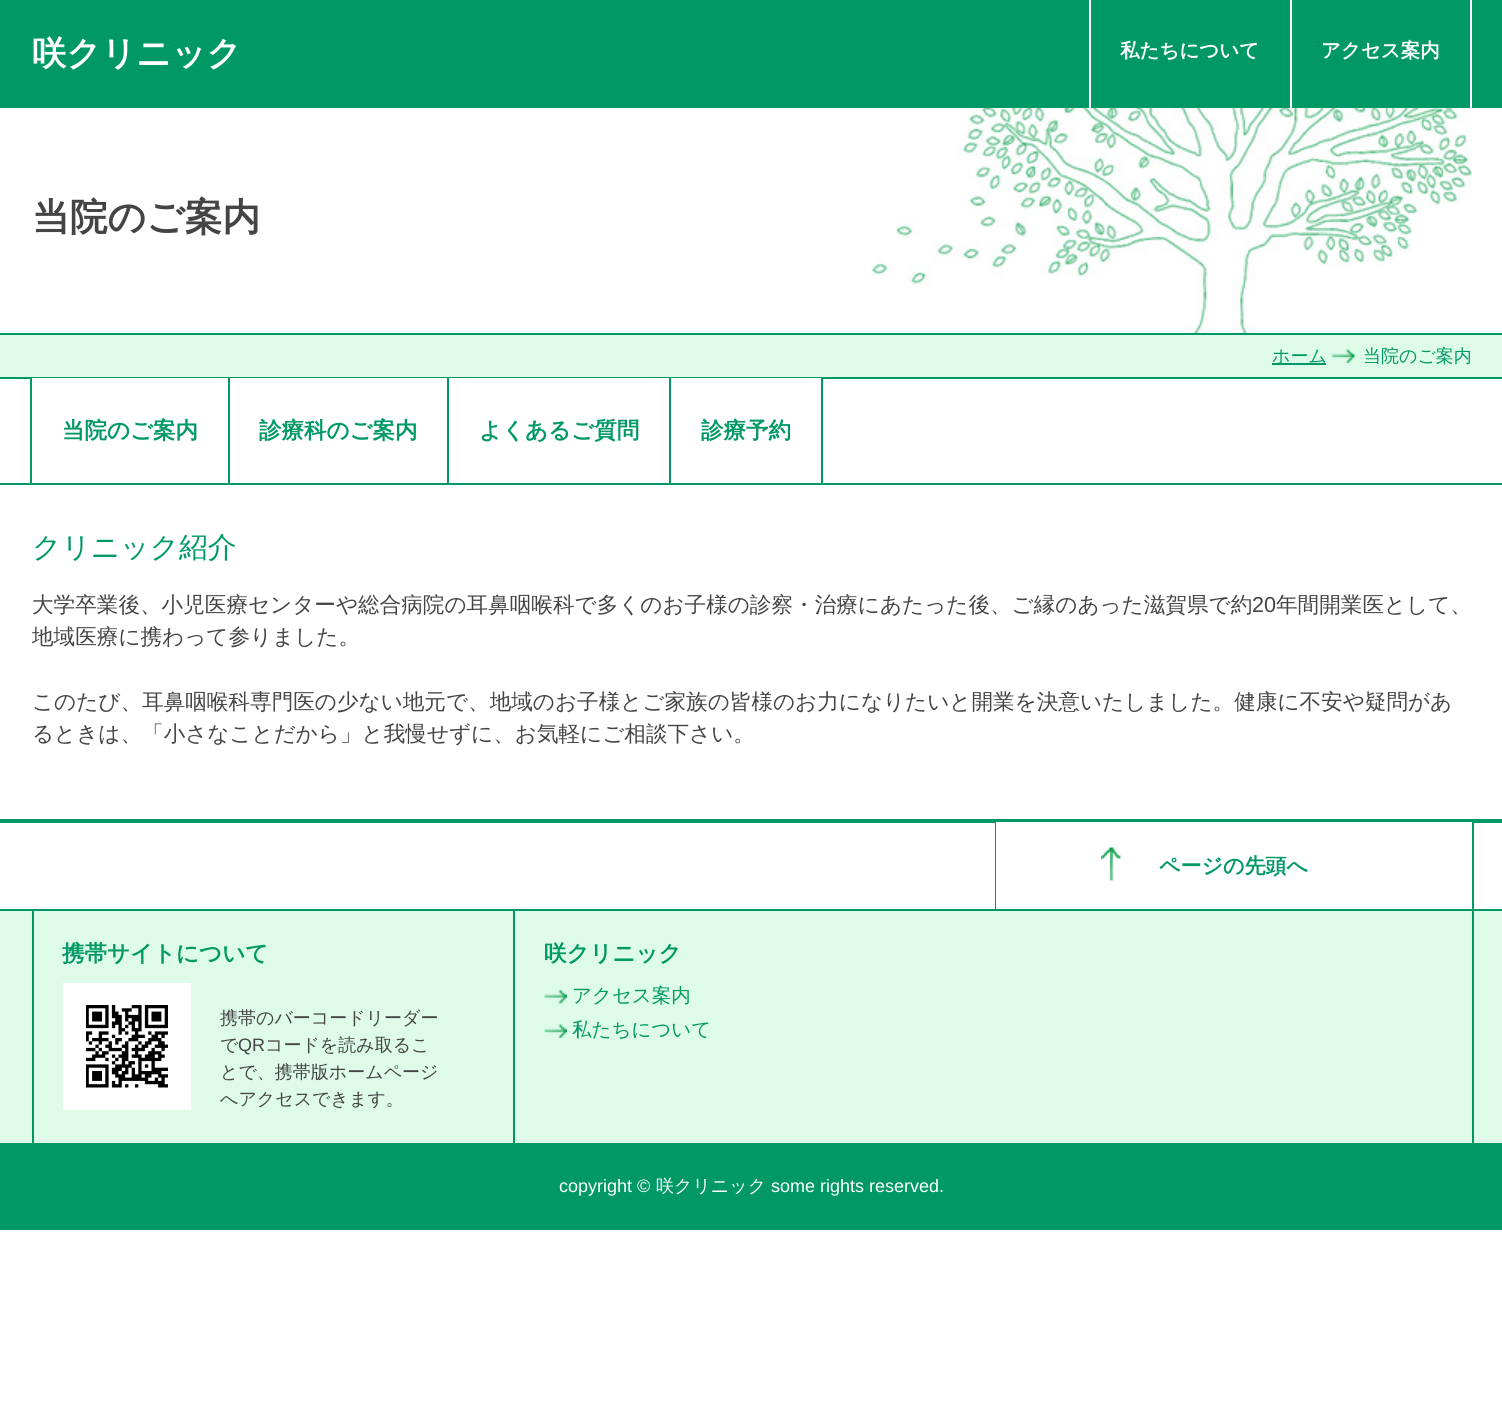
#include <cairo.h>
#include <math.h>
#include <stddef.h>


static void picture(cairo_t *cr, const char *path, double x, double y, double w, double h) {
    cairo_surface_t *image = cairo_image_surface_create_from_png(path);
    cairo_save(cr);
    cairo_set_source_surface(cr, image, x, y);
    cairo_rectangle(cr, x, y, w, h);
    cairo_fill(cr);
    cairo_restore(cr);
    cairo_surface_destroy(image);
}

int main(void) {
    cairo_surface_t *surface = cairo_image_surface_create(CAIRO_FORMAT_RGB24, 1502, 1420);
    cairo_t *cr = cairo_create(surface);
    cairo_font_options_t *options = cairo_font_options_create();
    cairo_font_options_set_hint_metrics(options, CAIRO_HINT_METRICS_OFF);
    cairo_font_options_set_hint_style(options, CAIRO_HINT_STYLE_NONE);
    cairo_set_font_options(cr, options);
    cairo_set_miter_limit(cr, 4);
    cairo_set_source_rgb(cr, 1, 1, 1);
    cairo_paint(cr);
    cairo_set_source_rgb(cr, 0, 0.6, 0.396);
    cairo_rectangle(cr, 0, 0, 1502, 108);
    cairo_fill(cr);
    cairo_select_font_face(cr, "WenQuanYi Zen Hei", CAIRO_FONT_SLANT_NORMAL, CAIRO_FONT_WEIGHT_BOLD);
    cairo_set_font_size(cr, 34.25);
    cairo_set_source_rgb(cr, 1, 1, 1);
    cairo_move_to(cr, 32, 65);
    cairo_show_text(cr, "咲クリニック");
    cairo_rectangle(cr, 1470, 0, 2, 108);
    cairo_fill(cr);
    cairo_rectangle(cr, 1089, 0, 2, 108);
    cairo_fill(cr);
    cairo_set_font_size(cr, 19.5);
    cairo_move_to(cr, 1120, 57);
    cairo_show_text(cr, "私たちについて");
    cairo_rectangle(cr, 1290, 0, 2, 108);
    cairo_fill(cr);
    cairo_move_to(cr, 1321, 57);
    cairo_show_text(cr, "アクセス案内");
    picture(cr, "img1.png", 871, 108, 601, 225);
    cairo_set_font_size(cr, 37.75);
    cairo_set_source_rgb(cr, 0.267, 0.267, 0.267);
    cairo_move_to(cr, 32, 230);
    cairo_show_text(cr, "当院のご案内");
    cairo_set_source_rgb(cr, 0.871, 0.984, 0.914);
    cairo_rectangle(cr, 0, 335, 1502, 42);
    cairo_fill(cr);
    cairo_set_source_rgb(cr, 0, 0.6, 0.396);
    cairo_rectangle(cr, 0, 333, 1502, 2);
    cairo_fill(cr);
    cairo_rectangle(cr, 1272, 363, 54, 2);
    cairo_fill(cr);
    cairo_select_font_face(cr, "WenQuanYi Zen Hei Medium", CAIRO_FONT_SLANT_NORMAL, CAIRO_FONT_WEIGHT_NORMAL);
    cairo_set_font_size(cr, 18);
    cairo_move_to(cr, 1272, 362);
    cairo_show_text(cr, "ホーム");
    picture(cr, "img2.png", 1332, 349, 23, 14);
    cairo_move_to(cr, 1363, 362);
    cairo_show_text(cr, "当院のご案内");
    cairo_rectangle(cr, 0, 377, 1502, 2);
    cairo_fill(cr);
    cairo_rectangle(cr, 0, 483, 1502, 2);
    cairo_fill(cr);
    cairo_rectangle(cr, 30, 377, 2, 108);
    cairo_fill(cr);
    cairo_rectangle(cr, 228, 378, 2, 107);
    cairo_fill(cr);
    cairo_set_source_rgb(cr, 1, 1, 1);
    cairo_rectangle(cr, 32, 378, 196, 1);
    cairo_fill(cr);
    cairo_select_font_face(cr, "WenQuanYi Zen Hei", CAIRO_FONT_SLANT_NORMAL, CAIRO_FONT_WEIGHT_BOLD);
    cairo_set_font_size(cr, 22.5);
    cairo_set_source_rgb(cr, 0, 0.6, 0.396);
    cairo_move_to(cr, 62, 438);
    cairo_show_text(cr, "当院のご案内");
    cairo_rectangle(cr, 447, 378, 2, 107);
    cairo_fill(cr);
    cairo_set_source_rgb(cr, 1, 1, 1);
    cairo_rectangle(cr, 230, 378, 217, 1);
    cairo_fill(cr);
    cairo_set_source_rgb(cr, 0, 0.6, 0.396);
    cairo_move_to(cr, 259, 438);
    cairo_show_text(cr, "診療科のご案内");
    cairo_rectangle(cr, 669, 378, 2, 107);
    cairo_fill(cr);
    cairo_set_source_rgb(cr, 1, 1, 1);
    cairo_rectangle(cr, 449, 378, 220, 1);
    cairo_fill(cr);
    cairo_set_source_rgb(cr, 0, 0.6, 0.396);
    cairo_move_to(cr, 479, 438);
    cairo_show_text(cr, "よくあるご質問");
    cairo_rectangle(cr, 821, 378, 2, 107);
    cairo_fill(cr);
    cairo_set_source_rgb(cr, 1, 1, 1);
    cairo_rectangle(cr, 671, 378, 150, 1);
    cairo_fill(cr);
    cairo_set_source_rgb(cr, 0, 0.6, 0.396);
    cairo_move_to(cr, 701, 438);
    cairo_show_text(cr, "診療予約");
    cairo_rectangle(cr, 0, 819, 1502, 4);
    cairo_fill(cr);
    cairo_select_font_face(cr, "WenQuanYi Zen Hei Medium", CAIRO_FONT_SLANT_NORMAL, CAIRO_FONT_WEIGHT_NORMAL);
    cairo_set_font_size(cr, 28.75);
    cairo_move_to(cr, 32, 557);
    cairo_show_text(cr, "クリニック紹介");
    cairo_set_font_size(cr, 21.6);
    cairo_set_source_rgb(cr, 0.267, 0.267, 0.267);
    cairo_move_to(cr, 32, 612);
    cairo_show_text(cr, "大学卒業後、小児医療センターや総合病院の耳鼻咽喉科で多くのお子様の診察・治療にあたった後、ご縁のあった滋賀県で約");
    cairo_select_font_face(cr, "Liberation Sans", CAIRO_FONT_SLANT_NORMAL, CAIRO_FONT_WEIGHT_NORMAL);
    cairo_move_to(cr, 1252, 612);
    cairo_show_text(cr, "20");
    cairo_select_font_face(cr, "WenQuanYi Zen Hei Medium", CAIRO_FONT_SLANT_NORMAL, CAIRO_FONT_WEIGHT_NORMAL);
    cairo_move_to(cr, 1276, 612);
    cairo_show_text(cr, "年間開業医として、");
    cairo_move_to(cr, 32, 644);
    cairo_show_text(cr, "地域医療に携わって参りました。");
    cairo_move_to(cr, 32, 709);
    cairo_show_text(cr, "このたび、耳鼻咽喉科専門医の少ない地元で、地域のお子様とご家族の皆様のお力になりたいと開業を決意いたしました。健康に不安や疑問があ");
    cairo_move_to(cr, 32, 741);
    cairo_show_text(cr, "るときは、「小さなことだから」と我慢せずに、お気軽にご相談下さい。");
    cairo_set_source_rgb(cr, 0, 0.6, 0.396);
    cairo_rectangle(cr, 1472, 822, 2, 87);
    cairo_fill(cr);
    cairo_rectangle(cr, 995, 822, 1, 87);
    cairo_fill(cr);
    cairo_set_source_rgb(cr, 1, 1, 1);
    cairo_rectangle(cr, 996, 822, 476, 1);
    cairo_fill(cr);
    picture(cr, "img3.png", 1101, 847, 20, 34);
    cairo_select_font_face(cr, "WenQuanYi Zen Hei", CAIRO_FONT_SLANT_NORMAL, CAIRO_FONT_WEIGHT_BOLD);
    cairo_set_font_size(cr, 21);
    cairo_set_source_rgb(cr, 0, 0.6, 0.396);
    cairo_move_to(cr, 1159, 873);
    cairo_show_text(cr, "ページの先頭へ");
    cairo_set_source_rgb(cr, 0.871, 0.984, 0.914);
    cairo_rectangle(cr, 0, 911, 1502, 232);
    cairo_fill(cr);
    cairo_set_source_rgb(cr, 0, 0.6, 0.396);
    cairo_rectangle(cr, 0, 909, 1502, 2);
    cairo_fill(cr);
    cairo_rectangle(cr, 1472, 911, 2, 232);
    cairo_fill(cr);
    cairo_rectangle(cr, 32, 911, 2, 232);
    cairo_fill(cr);
    cairo_set_font_size(cr, 22.5);
    cairo_move_to(cr, 62, 961);
    cairo_show_text(cr, "携帯サイトについて");
    cairo_set_source_rgb(cr, 1, 1, 1);
    cairo_rectangle(cr, 63, 983, 128, 127);
    cairo_fill(cr);
    picture(cr, "img4.png", 86, 1005, 82, 83);
    cairo_select_font_face(cr, "WenQuanYi Zen Hei Medium", CAIRO_FONT_SLANT_NORMAL, CAIRO_FONT_WEIGHT_NORMAL);
    cairo_set_font_size(cr, 18);
    cairo_set_source_rgb(cr, 0.267, 0.267, 0.267);
    cairo_move_to(cr, 220, 1024);
    cairo_show_text(cr, "携帯のバーコードリーダー");
    cairo_move_to(cr, 220, 1051);
    cairo_show_text(cr, "で");
    cairo_select_font_face(cr, "Liberation Sans", CAIRO_FONT_SLANT_NORMAL, CAIRO_FONT_WEIGHT_NORMAL);
    cairo_move_to(cr, 238, 1051);
    cairo_show_text(cr, "QR");
    cairo_select_font_face(cr, "WenQuanYi Zen Hei Medium", CAIRO_FONT_SLANT_NORMAL, CAIRO_FONT_WEIGHT_NORMAL);
    cairo_move_to(cr, 265, 1051);
    cairo_show_text(cr, "コードを読み取るこ");
    cairo_move_to(cr, 220, 1078);
    cairo_show_text(cr, "とで、携帯版ホームページ");
    cairo_move_to(cr, 220, 1105);
    cairo_show_text(cr, "へアクセスできます。");
    cairo_set_source_rgb(cr, 0, 0.6, 0.396);
    cairo_rectangle(cr, 513, 911, 2, 232);
    cairo_fill(cr);
    cairo_select_font_face(cr, "WenQuanYi Zen Hei", CAIRO_FONT_SLANT_NORMAL, CAIRO_FONT_WEIGHT_BOLD);
    cairo_set_font_size(cr, 22.5);
    cairo_move_to(cr, 544, 961);
    cairo_show_text(cr, "咲クリニック");
    picture(cr, "img5.png", 544, 990, 23, 14);
    cairo_select_font_face(cr, "WenQuanYi Zen Hei Medium", CAIRO_FONT_SLANT_NORMAL, CAIRO_FONT_WEIGHT_NORMAL);
    cairo_set_font_size(cr, 19.5);
    cairo_move_to(cr, 572, 1002);
    cairo_show_text(cr, "アクセス案内");
    picture(cr, "img6.png", 544, 1024, 23, 14);
    cairo_move_to(cr, 572, 1036);
    cairo_show_text(cr, "私たちについて");
    cairo_rectangle(cr, 0, 1143, 1502, 87);
    cairo_fill(cr);
    cairo_select_font_face(cr, "Liberation Sans", CAIRO_FONT_SLANT_NORMAL, CAIRO_FONT_WEIGHT_NORMAL);
    cairo_set_font_size(cr, 18);
    cairo_set_source_rgb(cr, 1, 1, 1);
    cairo_move_to(cr, 559, 1192);
    cairo_show_text(cr, "copyright ©");
    cairo_select_font_face(cr, "WenQuanYi Zen Hei Medium", CAIRO_FONT_SLANT_NORMAL, CAIRO_FONT_WEIGHT_NORMAL);
    cairo_move_to(cr, 656, 1192);
    cairo_show_text(cr, "咲クリニック");
    cairo_select_font_face(cr, "Liberation Sans", CAIRO_FONT_SLANT_NORMAL, CAIRO_FONT_WEIGHT_NORMAL);
    cairo_move_to(cr, 771, 1192);
    cairo_show_text(cr, "some rights reserved.");
    cairo_surface_write_to_png(surface, "page.png");
    cairo_font_options_destroy(options);
    cairo_destroy(cr);
    cairo_surface_destroy(surface);
    return 0;
}
